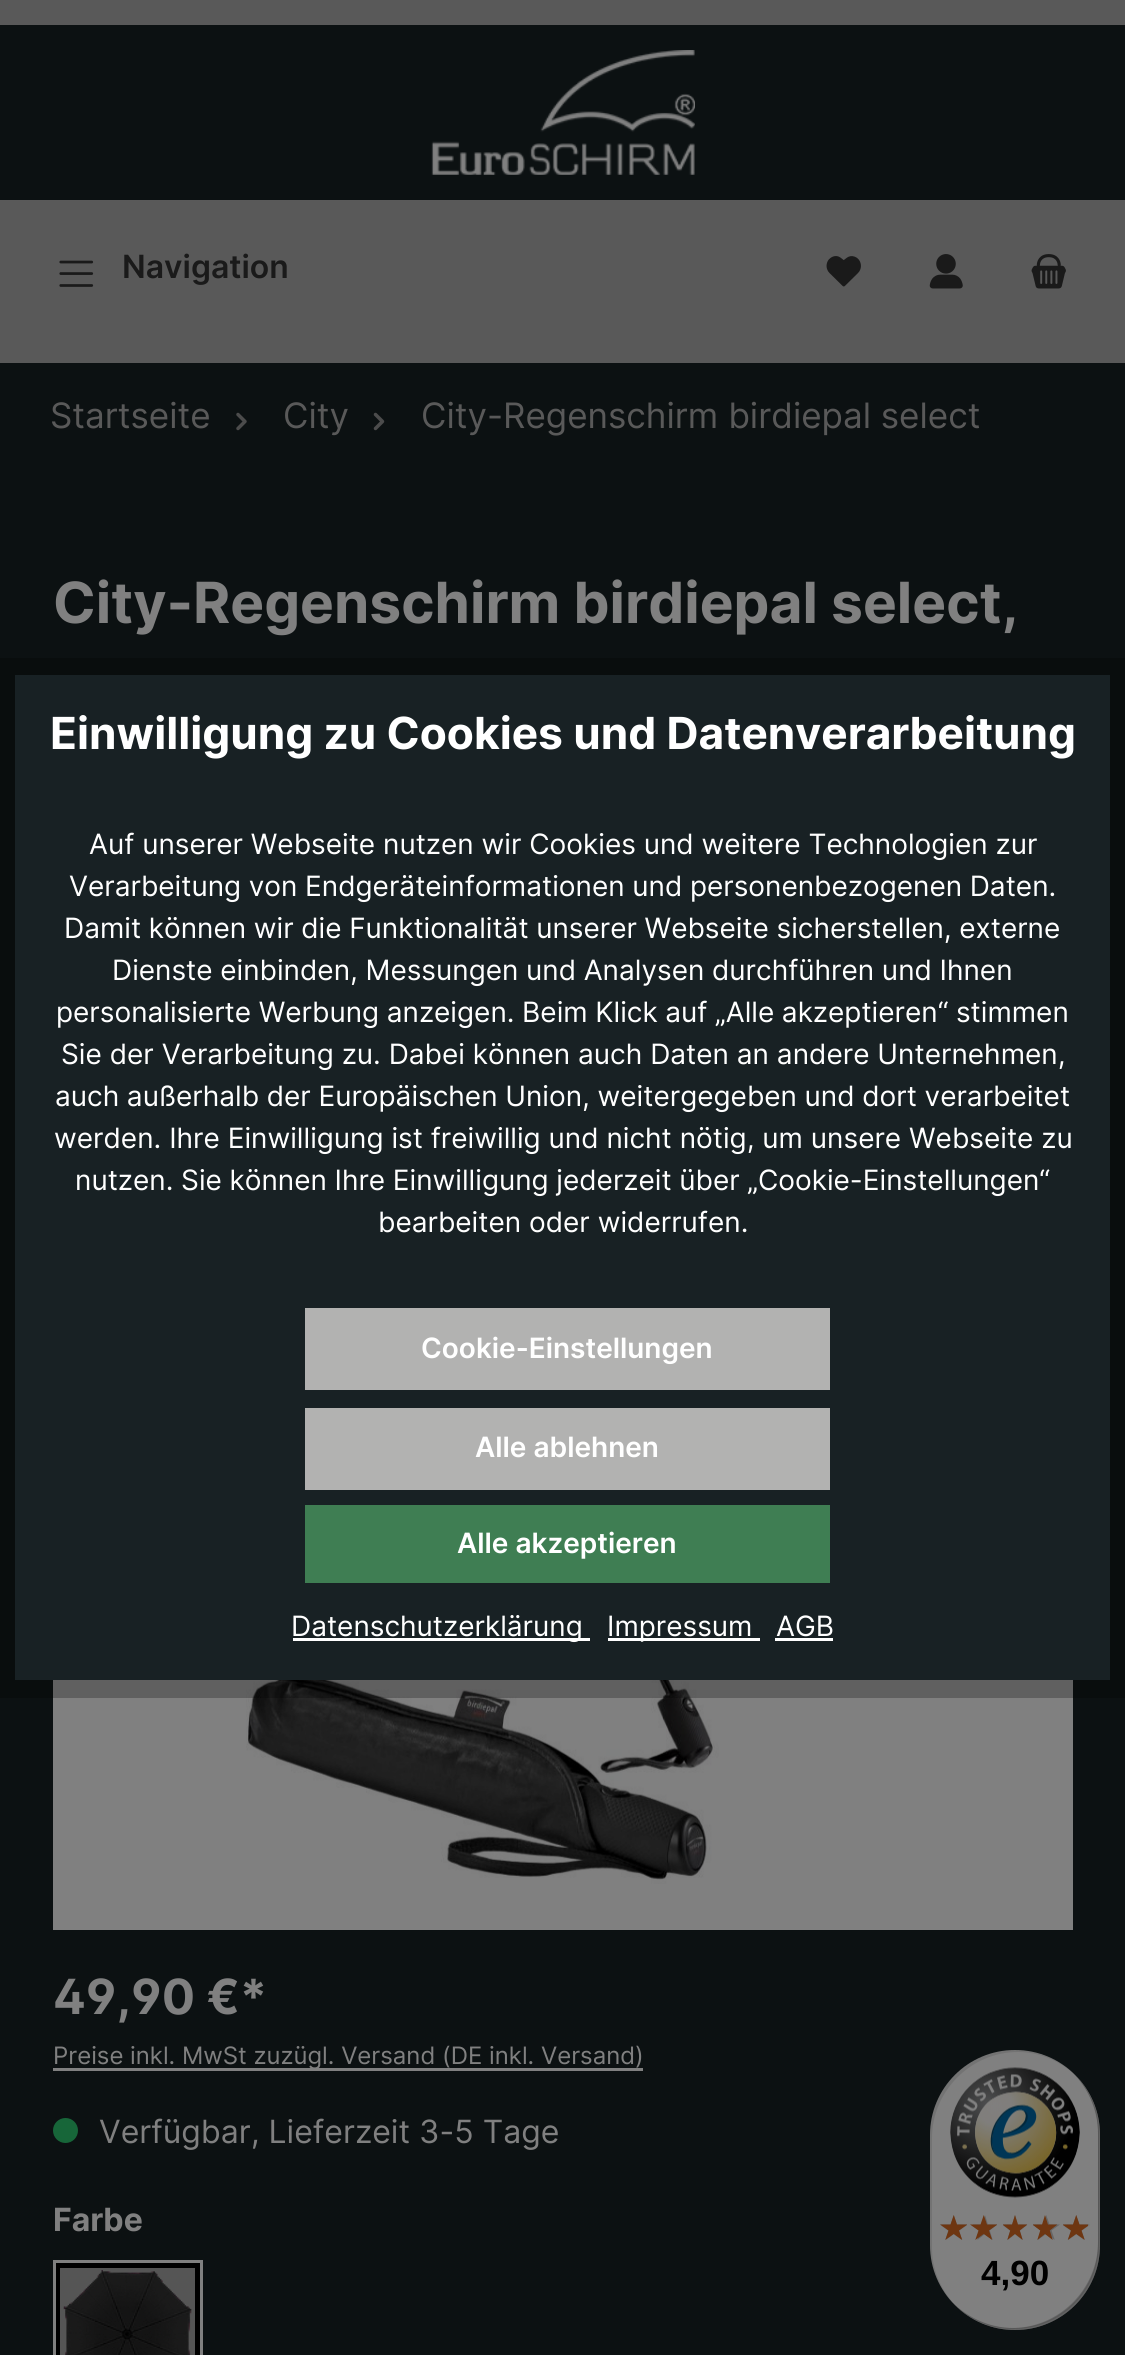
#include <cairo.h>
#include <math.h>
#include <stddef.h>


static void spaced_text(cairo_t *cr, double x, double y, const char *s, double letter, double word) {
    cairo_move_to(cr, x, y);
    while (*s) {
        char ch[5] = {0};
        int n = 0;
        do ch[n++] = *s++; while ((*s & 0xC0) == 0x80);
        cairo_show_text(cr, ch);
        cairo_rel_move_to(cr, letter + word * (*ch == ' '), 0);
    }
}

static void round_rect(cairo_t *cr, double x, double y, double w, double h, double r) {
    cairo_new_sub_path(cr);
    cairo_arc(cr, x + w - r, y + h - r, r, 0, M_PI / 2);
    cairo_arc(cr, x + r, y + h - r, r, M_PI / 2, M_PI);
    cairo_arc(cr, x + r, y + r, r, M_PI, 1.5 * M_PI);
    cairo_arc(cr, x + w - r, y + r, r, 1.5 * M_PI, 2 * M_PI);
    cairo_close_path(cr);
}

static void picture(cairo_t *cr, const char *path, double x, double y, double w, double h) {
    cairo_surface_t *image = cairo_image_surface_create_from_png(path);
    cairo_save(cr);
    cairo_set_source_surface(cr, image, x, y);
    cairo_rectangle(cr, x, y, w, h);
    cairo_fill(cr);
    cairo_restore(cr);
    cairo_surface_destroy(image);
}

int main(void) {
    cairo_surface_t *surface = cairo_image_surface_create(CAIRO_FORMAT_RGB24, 1125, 2355);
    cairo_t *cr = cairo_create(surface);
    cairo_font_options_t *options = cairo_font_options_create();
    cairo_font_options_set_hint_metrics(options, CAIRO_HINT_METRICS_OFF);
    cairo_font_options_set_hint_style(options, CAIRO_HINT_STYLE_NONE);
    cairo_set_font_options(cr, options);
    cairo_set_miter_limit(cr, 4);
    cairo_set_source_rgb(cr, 0.047, 0.067, 0.071);
    cairo_paint(cr);
    cairo_set_source_rgb(cr, 0.349, 0.349, 0.349);
    cairo_rectangle(cr, 0, 0, 1125, 363);
    cairo_fill(cr);
    cairo_set_source_rgb(cr, 0.047, 0.067, 0.071);
    cairo_rectangle(cr, 0, 25, 1125, 175);
    cairo_fill(cr);
    picture(cr, "img1.png", 431, 50, 264, 125);
    picture(cr, "img2.png", 59, 260, 35, 27);
    cairo_select_font_face(cr, "Inter SemiBold", CAIRO_FONT_SLANT_NORMAL, CAIRO_FONT_WEIGHT_NORMAL);
    cairo_set_font_size(cr, 32);
    cairo_set_source_rgb(cr, 0.102, 0.102, 0.102);
    cairo_move_to(cr, 122, 278);
    cairo_show_text(cr, "Navigation");
    picture(cr, "img3.png", 826, 256, 35, 31);
    picture(cr, "img4.png", 929, 254, 34, 35);
    picture(cr, "img5.png", 1031, 254, 35, 35);
    cairo_select_font_face(cr, "Inter", CAIRO_FONT_SLANT_NORMAL, CAIRO_FONT_WEIGHT_NORMAL);
    cairo_set_font_size(cr, 35);
    cairo_set_source_rgb(cr, 0.349, 0.349, 0.349);
    cairo_move_to(cr, 50, 428);
    cairo_show_text(cr, "Startseite");
    picture(cr, "img6.png", 236, 412, 11, 19);
    cairo_move_to(cr, 283, 428);
    cairo_show_text(cr, "City");
    picture(cr, "img7.png", 373, 412, 12, 19);
    cairo_move_to(cr, 421, 428);
    cairo_show_text(cr, "City-Regenschirm birdiepal select");
    cairo_select_font_face(cr, "Inter", CAIRO_FONT_SLANT_NORMAL, CAIRO_FONT_WEIGHT_BOLD);
    cairo_set_font_size(cr, 56.75);
    cairo_set_source_rgb(cr, 0.502, 0.502, 0.502);
    cairo_move_to(cr, 53, 623);
    cairo_show_text(cr, "City-Regenschirm birdiepal select,");
    cairo_rectangle(cr, 53, 1680, 1020, 250);
    cairo_fill(cr);
    picture(cr, "img8.png", 208, 1680, 721, 204);
    cairo_select_font_face(cr, "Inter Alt", CAIRO_FONT_SLANT_NORMAL, CAIRO_FONT_WEIGHT_BOLD);
    cairo_set_font_size(cr, 48.5);
    cairo_move_to(cr, 53, 2014);
    cairo_show_text(cr, "49,90 €*");
    cairo_rectangle(cr, 53, 2068, 590, 3);
    cairo_fill(cr);
    cairo_select_font_face(cr, "Inter", CAIRO_FONT_SLANT_NORMAL, CAIRO_FONT_WEIGHT_NORMAL);
    cairo_set_font_size(cr, 24);
    cairo_move_to(cr, 53, 2064);
    cairo_show_text(cr, "Preise inkl. MwSt zuzügl. Versand (DE inkl. Versand)");
    cairo_set_source_rgb(cr, 0.09, 0.4, 0.224);
    cairo_new_path(cr);
    cairo_arc(cr, 65.5, 2130.5, 12.5, 0, 2 * M_PI);
    cairo_fill(cr);
    cairo_set_font_size(cr, 32);
    cairo_set_source_rgb(cr, 0.502, 0.502, 0.502);
    cairo_move_to(cr, 99, 2143);
    cairo_show_text(cr, "Verfügbar, Lieferzeit 3-5 Tage");
    cairo_select_font_face(cr, "Inter", CAIRO_FONT_SLANT_NORMAL, CAIRO_FONT_WEIGHT_BOLD);
    cairo_move_to(cr, 53, 2231);
    cairo_show_text(cr, "Farbe");
    cairo_set_source_rgb(cr, 0.333, 0.333, 0.333);
    cairo_rectangle(cr, 60, 2268, 135, 87);
    cairo_fill(cr);
    cairo_save(cr);
    cairo_rectangle(cr, 55, 2263, 145, 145);
    cairo_clip(cr);
    cairo_set_source_rgb(cr, 0, 0, 0);
    cairo_set_fill_rule(cr, CAIRO_FILL_RULE_EVEN_ODD);
    cairo_new_path(cr);
    cairo_move_to(cr, -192, 2015);
    cairo_line_to(cr, 448, 2015);
    cairo_line_to(cr, 448, 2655);
    cairo_line_to(cr, -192, 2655);
    cairo_close_path(cr);
    cairo_move_to(cr, 50, 2258);
    cairo_line_to(cr, 195, 2258);
    cairo_line_to(cr, 195, 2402);
    cairo_line_to(cr, 50, 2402);
    cairo_close_path(cr);
    cairo_fill(cr);
    cairo_new_path(cr);
    cairo_move_to(cr, -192, 2015);
    cairo_line_to(cr, 448, 2015);
    cairo_line_to(cr, 448, 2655);
    cairo_line_to(cr, -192, 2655);
    cairo_close_path(cr);
    cairo_move_to(cr, 60, 2268);
    cairo_line_to(cr, 205, 2268);
    cairo_line_to(cr, 205, 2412);
    cairo_line_to(cr, 60, 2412);
    cairo_close_path(cr);
    cairo_fill(cr);
    cairo_restore(cr);
    cairo_rectangle(cr, 54.5, 2261.5, 147, 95);
    cairo_set_source_rgb(cr, 0.502, 0.502, 0.502);
    cairo_set_line_width(cr, 3);
    cairo_stroke(cr);
    picture(cr, "img9.png", 63, 2270, 129, 85);
    cairo_rectangle(cr, 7, 667, 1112, 1022);
    cairo_set_source_rgba(cr, 0, 0, 0, 0.25);
    cairo_set_line_width(cr, 18);
    cairo_stroke(cr);
    cairo_set_source_rgb(cr, 0.094, 0.129, 0.141);
    cairo_rectangle(cr, 15, 675, 1095, 1005);
    cairo_fill(cr);
    cairo_set_font_size(cr, 44.2);
    cairo_set_source_rgb(cr, 1, 1, 1);
    cairo_move_to(cr, 50, 749);
    cairo_show_text(cr, "Einwilligung zu Cookies und Datenverarbeitung");
    cairo_select_font_face(cr, "Inter", CAIRO_FONT_SLANT_NORMAL, CAIRO_FONT_WEIGHT_NORMAL);
    cairo_set_font_size(cr, 28);
    cairo_move_to(cr, 89, 854);
    cairo_show_text(cr, "Auf unserer Webseite nutzen wir Cookies und weitere Technologien zur");
    spaced_text(cr, 69, 896, "Verarbeitung von Endgeräteinformationen und personenbezogenen Daten.", 0, -0.25);
    spaced_text(cr, 64, 938, "Damit können wir die Funktionalität unserer Webseite sicherstellen, externe", 0, -0.25);
    spaced_text(cr, 112, 980, "Dienste einbinden, Messungen und Analysen durchführen und Ihnen", 0, -0.25);
    spaced_text(cr, 56, 1022, "personalisierte Werbung anzeigen. Beim Klick auf „Alle akzeptieren“ stimmen", 0, -0.25);
    cairo_move_to(cr, 61, 1064);
    cairo_show_text(cr, "Sie der Verarbeitung zu. Dabei können auch Daten an andere Unternehmen,");
    spaced_text(cr, 55, 1106, "auch außerhalb der Europäischen Union, weitergegeben und dort verarbeitet", 0, -0.25);
    cairo_move_to(cr, 54, 1148);
    cairo_show_text(cr, "werden. Ihre Einwilligung ist freiwillig und nicht nötig, um unsere Webseite zu");
    spaced_text(cr, 75, 1190, "nutzen. Sie können Ihre Einwilligung jederzeit über „Cookie-Einstellungen“", 0, -0.25);
    cairo_move_to(cr, 378, 1232);
    cairo_show_text(cr, "bearbeiten oder widerrufen.");
    cairo_set_source_rgb(cr, 0.698, 0.698, 0.694);
    cairo_rectangle(cr, 305, 1308, 525, 82);
    cairo_fill(cr);
    cairo_select_font_face(cr, "Inter SemiBold", CAIRO_FONT_SLANT_NORMAL, CAIRO_FONT_WEIGHT_NORMAL);
    cairo_set_source_rgb(cr, 1, 1, 1);
    cairo_move_to(cr, 421, 1358);
    cairo_show_text(cr, "Cookie-Einstellungen");
    cairo_set_source_rgb(cr, 0.698, 0.698, 0.694);
    cairo_rectangle(cr, 305, 1408, 525, 82);
    cairo_fill(cr);
    cairo_set_source_rgb(cr, 1, 1, 1);
    cairo_move_to(cr, 475, 1457);
    cairo_show_text(cr, "Alle ablehnen");
    cairo_set_source_rgb(cr, 0.247, 0.494, 0.325);
    cairo_rectangle(cr, 305, 1505, 525, 78);
    cairo_fill(cr);
    cairo_set_source_rgb(cr, 1, 1, 1);
    cairo_move_to(cr, 457, 1553);
    cairo_show_text(cr, "Alle akzeptieren");
    cairo_rectangle(cr, 293, 1638, 297, 3);
    cairo_fill(cr);
    cairo_select_font_face(cr, "Inter", CAIRO_FONT_SLANT_NORMAL, CAIRO_FONT_WEIGHT_NORMAL);
    cairo_move_to(cr, 291, 1636);
    cairo_show_text(cr, "Datenschutzerklärung");
    cairo_rectangle(cr, 608, 1638, 152, 3);
    cairo_fill(cr);
    cairo_move_to(cr, 607, 1636);
    cairo_show_text(cr, "Impressum");
    cairo_move_to(cr, 776, 1636);
    cairo_show_text(cr, "AGB");
    cairo_rectangle(cr, 775, 1638, 58, 3);
    cairo_fill(cr);
    cairo_set_source_rgb(cr, 0.502, 0.502, 0.502);
    round_rect(cr, 930, 2050, 170, 280, 85);
    cairo_fill(cr);
    cairo_set_source_rgba(cr, 0, 0, 0, 0.1);
    cairo_new_path(cr);
    cairo_move_to(cr, 1018, 2052);
    cairo_curve_to(cr, 1043, 2052, 1066, 2064, 1082, 2082);
    cairo_curve_to(cr, 1066, 2063, 1042, 2050, 1015, 2050);
    cairo_curve_to(cr, 968, 2050, 930, 2088, 930, 2135);
    cairo_line_to(cr, 930, 2245);
    cairo_curve_to(cr, 930, 2272, 943, 2296, 962, 2312);
    cairo_curve_to(cr, 944, 2296, 932, 2273, 932, 2248);
    cairo_line_to(cr, 932, 2138);
    cairo_curve_to(cr, 932, 2091, 971, 2052, 1018, 2052);
    cairo_close_path(cr);
    cairo_fill(cr);
    cairo_set_source_rgba(cr, 0, 0, 0, 0.2);
    cairo_new_path(cr);
    cairo_move_to(cr, 948, 2298);
    cairo_curve_to(cr, 964, 2317, 988, 2330, 1015, 2330);
    cairo_curve_to(cr, 1062, 2330, 1100, 2292, 1100, 2245);
    cairo_line_to(cr, 1100, 2135);
    cairo_curve_to(cr, 1100, 2108, 1087, 2084, 1068, 2068);
    cairo_curve_to(cr, 1086, 2084, 1098, 2107, 1098, 2132);
    cairo_line_to(cr, 1098, 2242);
    cairo_curve_to(cr, 1098, 2289, 1059, 2328, 1012, 2328);
    cairo_curve_to(cr, 987, 2328, 964, 2316, 948, 2298);
    cairo_close_path(cr);
    cairo_fill(cr);
    cairo_set_source_rgba(cr, 0.098, 0.098, 0.098, 0.2);
    cairo_new_path(cr);
    cairo_move_to(cr, 950, 2300);
    cairo_curve_to(cr, 966, 2318, 989, 2330, 1015, 2330);
    cairo_curve_to(cr, 1062, 2330, 1100, 2292, 1100, 2245);
    cairo_line_to(cr, 1100, 2135);
    cairo_curve_to(cr, 1100, 2109, 1088, 2086, 1070, 2070);
    cairo_curve_to(cr, 1087, 2086, 1098, 2109, 1098, 2134);
    cairo_line_to(cr, 1098, 2244);
    cairo_curve_to(cr, 1098, 2290, 1060, 2328, 1014, 2328);
    cairo_curve_to(cr, 989, 2328, 966, 2317, 950, 2300);
    cairo_close_path(cr);
    cairo_fill(cr);
    cairo_set_source_rgba(cr, 0.502, 0.502, 0.502, 0.3);
    cairo_new_path(cr);
    cairo_move_to(cr, 956, 2306);
    cairo_curve_to(cr, 971, 2321, 992, 2330, 1015, 2330);
    cairo_curve_to(cr, 1062, 2330, 1100, 2292, 1100, 2245);
    cairo_line_to(cr, 1100, 2135);
    cairo_curve_to(cr, 1100, 2112, 1091, 2091, 1076, 2076);
    cairo_curve_to(cr, 1090, 2091, 1099, 2111, 1099, 2134);
    cairo_line_to(cr, 1099, 2244);
    cairo_curve_to(cr, 1099, 2291, 1061, 2329, 1014, 2329);
    cairo_curve_to(cr, 991, 2329, 971, 2320, 956, 2306);
    cairo_close_path(cr);
    cairo_fill(cr);
    picture(cr, "img10.png", 950, 2067, 130, 131);
    picture(cr, "img11.png", 940, 2215, 27, 25);
    picture(cr, "img12.png", 973, 2215, 24, 25);
    picture(cr, "img13.png", 1003, 2215, 24, 25);
    picture(cr, "img14.png", 1033, 2215, 27, 25);
    picture(cr, "img15.png", 1063, 2215, 27, 25);
    picture(cr, "img16.png", 940, 2215, 27, 25);
    picture(cr, "img17.png", 970, 2215, 27, 25);
    picture(cr, "img18.png", 1003, 2215, 25, 25);
    picture(cr, "img19.png", 1033, 2215, 25, 25);
    picture(cr, "img20.png", 1063, 2215, 25, 25);
    cairo_select_font_face(cr, "Liberation Sans", CAIRO_FONT_SLANT_NORMAL, CAIRO_FONT_WEIGHT_BOLD);
    cairo_set_font_size(cr, 35);
    cairo_set_source_rgb(cr, 0, 0, 0);
    cairo_move_to(cr, 981, 2285);
    cairo_show_text(cr, "4,90");
    cairo_surface_write_to_png(surface, "page.png");
    cairo_font_options_destroy(options);
    cairo_destroy(cr);
    cairo_surface_destroy(surface);
    return 0;
}
